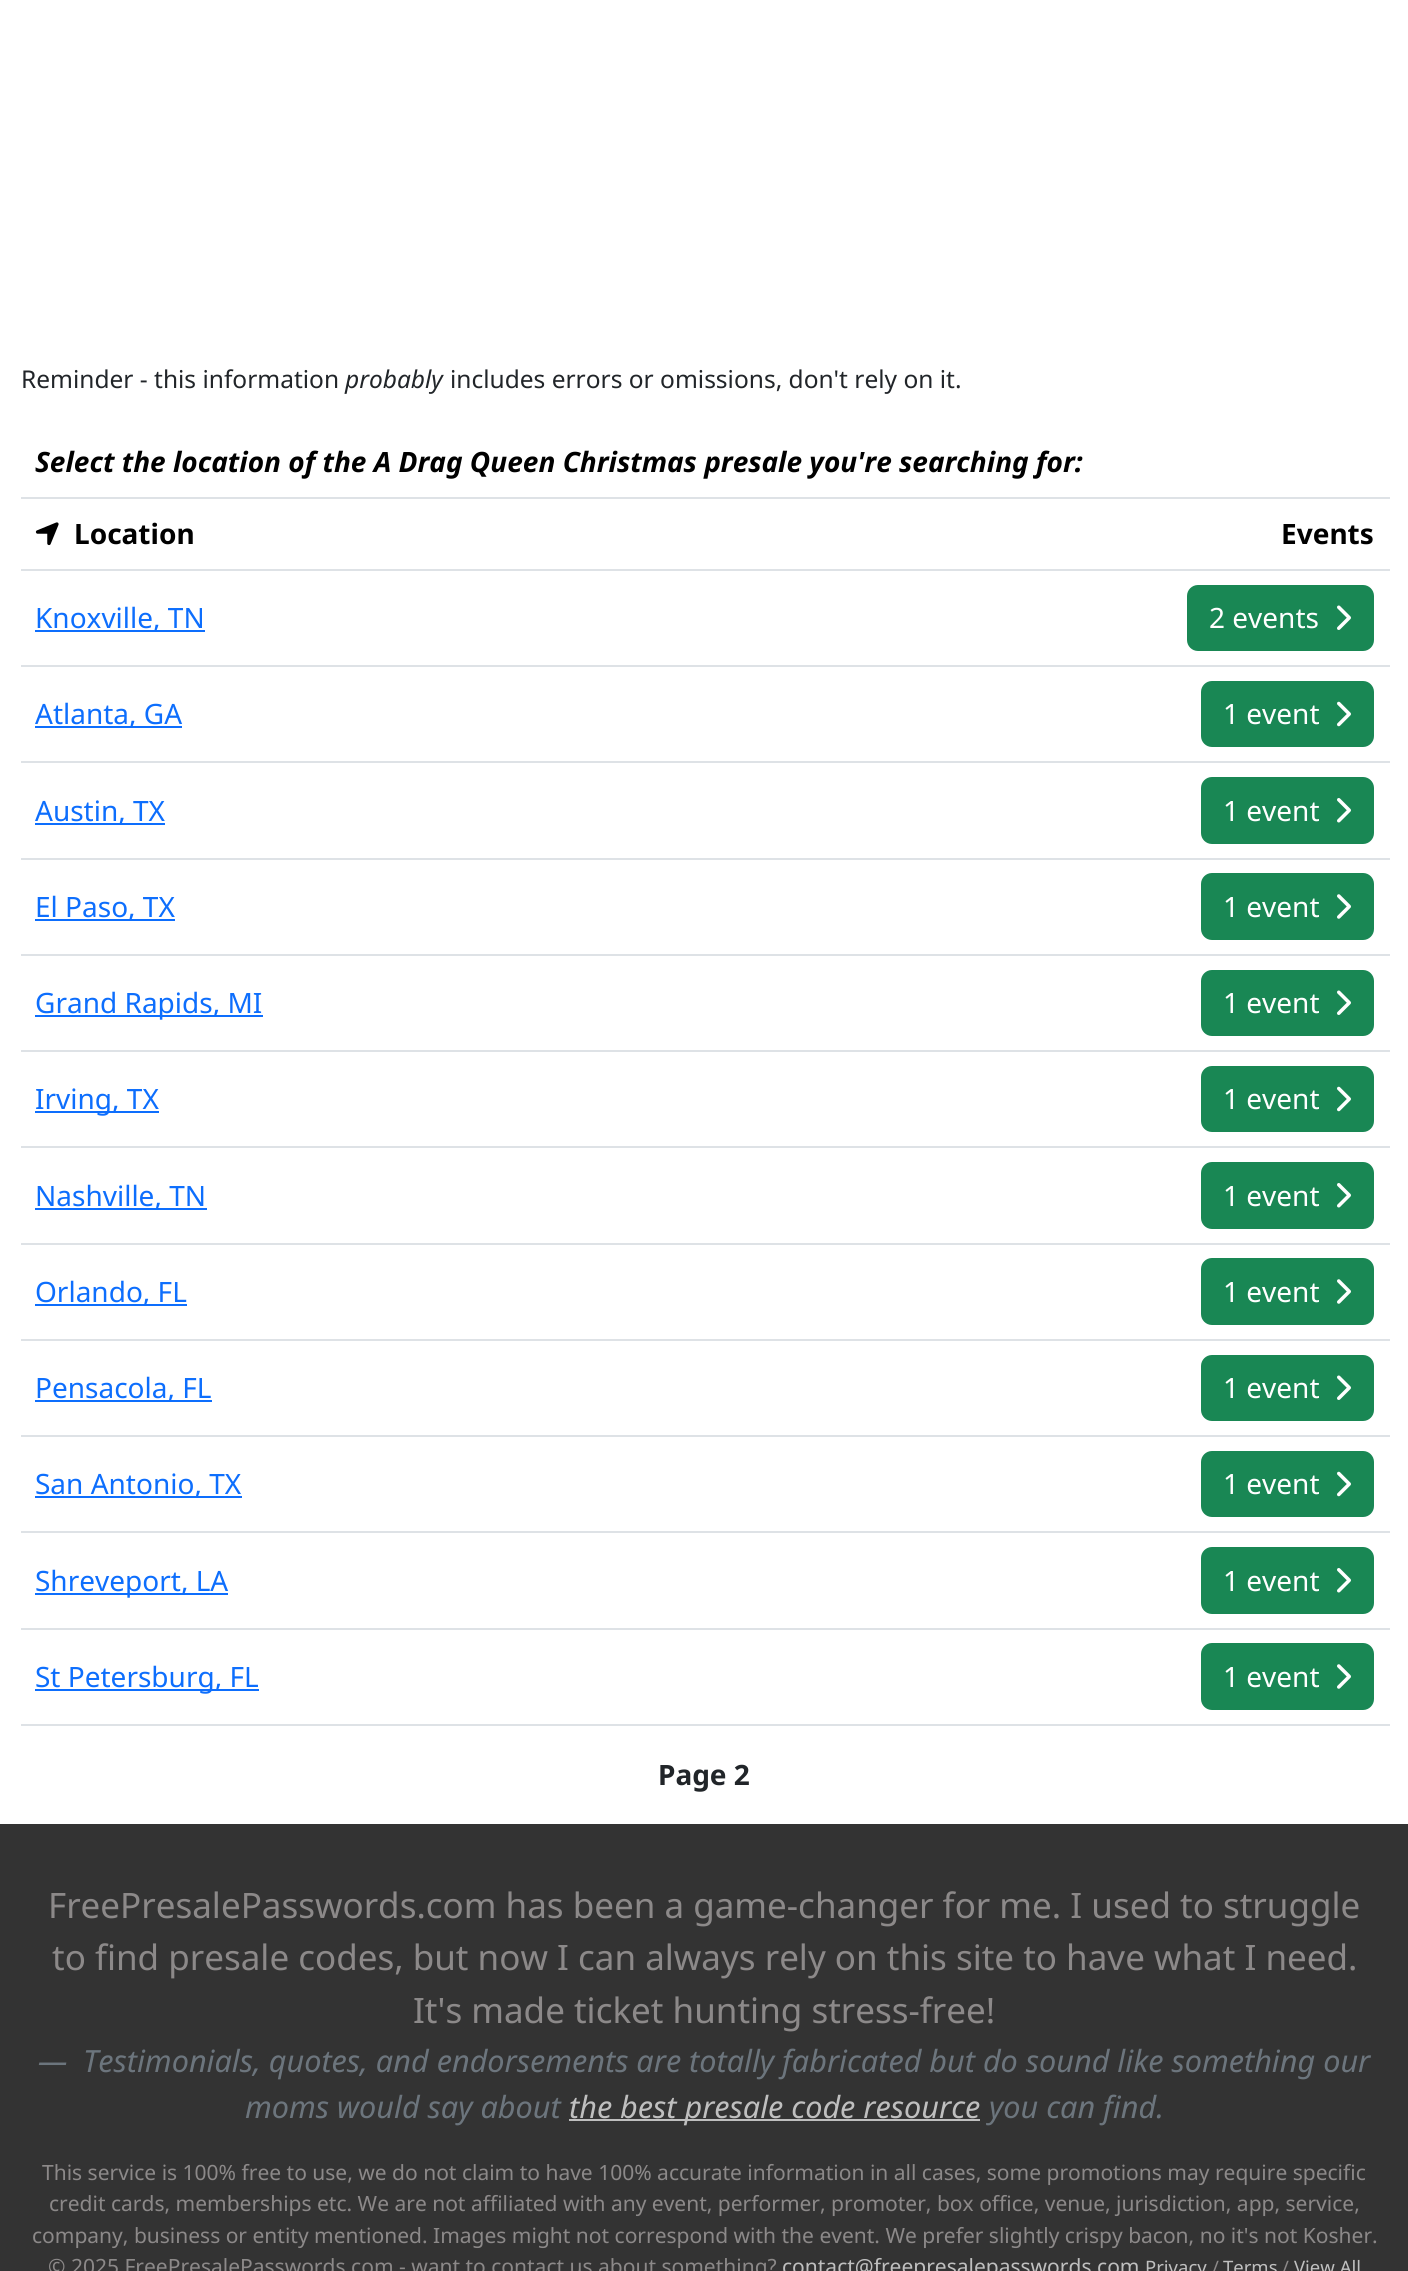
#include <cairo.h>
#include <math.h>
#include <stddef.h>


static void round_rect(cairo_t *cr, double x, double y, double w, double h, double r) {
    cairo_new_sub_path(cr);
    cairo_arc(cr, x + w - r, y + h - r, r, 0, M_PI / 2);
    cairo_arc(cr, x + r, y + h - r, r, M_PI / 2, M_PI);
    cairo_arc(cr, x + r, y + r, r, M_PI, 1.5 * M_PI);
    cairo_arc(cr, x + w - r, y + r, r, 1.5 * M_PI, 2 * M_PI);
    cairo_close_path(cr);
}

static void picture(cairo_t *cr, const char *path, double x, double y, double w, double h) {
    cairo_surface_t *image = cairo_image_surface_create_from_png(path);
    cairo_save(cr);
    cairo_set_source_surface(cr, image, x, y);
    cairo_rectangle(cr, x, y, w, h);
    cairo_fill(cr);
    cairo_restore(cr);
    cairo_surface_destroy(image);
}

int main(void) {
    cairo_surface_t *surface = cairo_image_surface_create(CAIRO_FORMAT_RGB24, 1408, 2271);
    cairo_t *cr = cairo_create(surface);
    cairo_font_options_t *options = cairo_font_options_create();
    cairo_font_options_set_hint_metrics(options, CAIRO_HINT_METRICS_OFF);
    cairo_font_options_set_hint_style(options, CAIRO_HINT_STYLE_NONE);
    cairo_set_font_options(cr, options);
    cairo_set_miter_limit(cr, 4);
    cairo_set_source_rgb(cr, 1, 1, 1);
    cairo_paint(cr);
    cairo_select_font_face(cr, "Noto Sans", CAIRO_FONT_SLANT_NORMAL, CAIRO_FONT_WEIGHT_NORMAL);
    cairo_set_font_size(cr, 24.5);
    cairo_set_source_rgb(cr, 0.129, 0.145, 0.161);
    cairo_move_to(cr, 21, 388);
    cairo_show_text(cr, "Reminder - this information");
    cairo_select_font_face(cr, "Noto Sans", CAIRO_FONT_SLANT_ITALIC, CAIRO_FONT_WEIGHT_NORMAL);
    cairo_move_to(cr, 345, 388);
    cairo_show_text(cr, "probably");
    cairo_select_font_face(cr, "Noto Sans", CAIRO_FONT_SLANT_NORMAL, CAIRO_FONT_WEIGHT_NORMAL);
    cairo_move_to(cr, 450, 388);
    cairo_show_text(cr, "includes errors or omissions, don't rely on it.");
    cairo_set_source_rgb(cr, 0.871, 0.886, 0.902);
    cairo_rectangle(cr, 21, 497, 1369, 2);
    cairo_fill(cr);
    cairo_select_font_face(cr, "Noto Sans", CAIRO_FONT_SLANT_ITALIC, CAIRO_FONT_WEIGHT_BOLD);
    cairo_set_font_size(cr, 28);
    cairo_set_source_rgb(cr, 0, 0, 0);
    cairo_move_to(cr, 35, 472);
    cairo_show_text(cr, "Select the location of the A Drag Queen Christmas presale you're searching for:");
    picture(cr, "img1.png", 35, 522, 24, 24);
    cairo_select_font_face(cr, "Noto Sans", CAIRO_FONT_SLANT_NORMAL, CAIRO_FONT_WEIGHT_BOLD);
    cairo_move_to(cr, 74, 544);
    cairo_show_text(cr, "Location");
    cairo_set_source_rgb(cr, 0.871, 0.886, 0.902);
    cairo_rectangle(cr, 21, 569, 1369, 2);
    cairo_fill(cr);
    cairo_set_source_rgb(cr, 0, 0, 0);
    cairo_move_to(cr, 1281, 544);
    cairo_show_text(cr, "Events");
    cairo_set_source_rgb(cr, 0.051, 0.431, 0.992);
    cairo_rectangle(cr, 35, 630, 170, 2);
    cairo_fill(cr);
    cairo_select_font_face(cr, "Noto Sans", CAIRO_FONT_SLANT_NORMAL, CAIRO_FONT_WEIGHT_NORMAL);
    cairo_move_to(cr, 35, 628);
    cairo_show_text(cr, "Knoxville, TN");
    cairo_set_source_rgb(cr, 0.871, 0.886, 0.902);
    cairo_rectangle(cr, 21, 665, 1369, 2);
    cairo_fill(cr);
    cairo_set_source_rgb(cr, 0.098, 0.529, 0.329);
    round_rect(cr, 1188, 586, 185, 64, 10);
    cairo_fill_preserve(cr);
    cairo_stroke(cr);
    cairo_set_source_rgb(cr, 1, 1, 1);
    cairo_move_to(cr, 1209, 628);
    cairo_show_text(cr, "2 events");
    picture(cr, "img2.png", 1337, 605, 14, 25);
    cairo_set_source_rgb(cr, 0.051, 0.431, 0.992);
    cairo_rectangle(cr, 35, 726, 147, 2);
    cairo_fill(cr);
    cairo_move_to(cr, 35, 724);
    cairo_show_text(cr, "Atlanta, GA");
    cairo_set_source_rgb(cr, 0.871, 0.886, 0.902);
    cairo_rectangle(cr, 21, 761, 1369, 2);
    cairo_fill(cr);
    cairo_set_source_rgb(cr, 0.098, 0.529, 0.329);
    round_rect(cr, 1202, 682, 171, 64, 10);
    cairo_fill_preserve(cr);
    cairo_stroke(cr);
    cairo_set_source_rgb(cr, 1, 1, 1);
    cairo_move_to(cr, 1223, 724);
    cairo_show_text(cr, "1 event");
    picture(cr, "img3.png", 1337, 701, 14, 26);
    cairo_set_source_rgb(cr, 0.051, 0.431, 0.992);
    cairo_rectangle(cr, 35, 823, 130, 2);
    cairo_fill(cr);
    cairo_move_to(cr, 35, 821);
    cairo_show_text(cr, "Austin, TX");
    cairo_set_source_rgb(cr, 0.871, 0.886, 0.902);
    cairo_rectangle(cr, 21, 858, 1369, 2);
    cairo_fill(cr);
    cairo_set_source_rgb(cr, 0.098, 0.529, 0.329);
    round_rect(cr, 1202, 778, 171, 65, 10);
    cairo_fill_preserve(cr);
    cairo_stroke(cr);
    cairo_set_source_rgb(cr, 1, 1, 1);
    cairo_move_to(cr, 1223, 821);
    cairo_show_text(cr, "1 event");
    picture(cr, "img4.png", 1337, 798, 14, 25);
    cairo_set_source_rgb(cr, 0.051, 0.431, 0.992);
    cairo_rectangle(cr, 35, 919, 140, 2);
    cairo_fill(cr);
    cairo_move_to(cr, 35, 917);
    cairo_show_text(cr, "El Paso, TX");
    cairo_set_source_rgb(cr, 0.871, 0.886, 0.902);
    cairo_rectangle(cr, 21, 954, 1369, 2);
    cairo_fill(cr);
    cairo_set_source_rgb(cr, 0.098, 0.529, 0.329);
    round_rect(cr, 1202, 874, 171, 65, 10);
    cairo_fill_preserve(cr);
    cairo_stroke(cr);
    cairo_set_source_rgb(cr, 1, 1, 1);
    cairo_move_to(cr, 1223, 917);
    cairo_show_text(cr, "1 event");
    picture(cr, "img5.png", 1337, 894, 14, 25);
    cairo_set_source_rgb(cr, 0.051, 0.431, 0.992);
    cairo_rectangle(cr, 35, 1015, 228, 2);
    cairo_fill(cr);
    cairo_move_to(cr, 35, 1013);
    cairo_show_text(cr, "Grand Rapids, MI");
    cairo_set_source_rgb(cr, 0.871, 0.886, 0.902);
    cairo_rectangle(cr, 21, 1050, 1369, 2);
    cairo_fill(cr);
    cairo_set_source_rgb(cr, 0.098, 0.529, 0.329);
    round_rect(cr, 1202, 971, 171, 64, 10);
    cairo_fill_preserve(cr);
    cairo_stroke(cr);
    cairo_set_source_rgb(cr, 1, 1, 1);
    cairo_move_to(cr, 1223, 1013);
    cairo_show_text(cr, "1 event");
    picture(cr, "img2.png", 1337, 990, 14, 25);
    cairo_set_source_rgb(cr, 0.051, 0.431, 0.992);
    cairo_rectangle(cr, 35, 1111, 124, 2);
    cairo_fill(cr);
    cairo_move_to(cr, 35, 1109);
    cairo_show_text(cr, "Irving, TX");
    cairo_set_source_rgb(cr, 0.871, 0.886, 0.902);
    cairo_rectangle(cr, 21, 1146, 1369, 2);
    cairo_fill(cr);
    cairo_set_source_rgb(cr, 0.098, 0.529, 0.329);
    round_rect(cr, 1202, 1067, 171, 64, 10);
    cairo_fill_preserve(cr);
    cairo_stroke(cr);
    cairo_set_source_rgb(cr, 1, 1, 1);
    cairo_move_to(cr, 1223, 1109);
    cairo_show_text(cr, "1 event");
    picture(cr, "img3.png", 1337, 1086, 14, 26);
    cairo_set_source_rgb(cr, 0.051, 0.431, 0.992);
    cairo_rectangle(cr, 35, 1208, 172, 2);
    cairo_fill(cr);
    cairo_move_to(cr, 35, 1206);
    cairo_show_text(cr, "Nashville, TN");
    cairo_set_source_rgb(cr, 0.871, 0.886, 0.902);
    cairo_rectangle(cr, 21, 1243, 1369, 2);
    cairo_fill(cr);
    cairo_set_source_rgb(cr, 0.098, 0.529, 0.329);
    round_rect(cr, 1202, 1163, 171, 65, 10);
    cairo_fill_preserve(cr);
    cairo_stroke(cr);
    cairo_set_source_rgb(cr, 1, 1, 1);
    cairo_move_to(cr, 1223, 1206);
    cairo_show_text(cr, "1 event");
    picture(cr, "img4.png", 1337, 1183, 14, 25);
    cairo_set_source_rgb(cr, 0.051, 0.431, 0.992);
    cairo_rectangle(cr, 35, 1304, 152, 2);
    cairo_fill(cr);
    cairo_move_to(cr, 35, 1302);
    cairo_show_text(cr, "Orlando, FL");
    cairo_set_source_rgb(cr, 0.871, 0.886, 0.902);
    cairo_rectangle(cr, 21, 1339, 1369, 2);
    cairo_fill(cr);
    cairo_set_source_rgb(cr, 0.098, 0.529, 0.329);
    round_rect(cr, 1202, 1259, 171, 65, 10);
    cairo_fill_preserve(cr);
    cairo_stroke(cr);
    cairo_set_source_rgb(cr, 1, 1, 1);
    cairo_move_to(cr, 1223, 1302);
    cairo_show_text(cr, "1 event");
    picture(cr, "img5.png", 1337, 1279, 14, 25);
    cairo_set_source_rgb(cr, 0.051, 0.431, 0.992);
    cairo_rectangle(cr, 35, 1400, 177, 2);
    cairo_fill(cr);
    cairo_move_to(cr, 35, 1398);
    cairo_show_text(cr, "Pensacola, FL");
    cairo_set_source_rgb(cr, 0.871, 0.886, 0.902);
    cairo_rectangle(cr, 21, 1435, 1369, 2);
    cairo_fill(cr);
    cairo_set_source_rgb(cr, 0.098, 0.529, 0.329);
    round_rect(cr, 1202, 1356, 171, 64, 10);
    cairo_fill_preserve(cr);
    cairo_stroke(cr);
    cairo_set_source_rgb(cr, 1, 1, 1);
    cairo_move_to(cr, 1223, 1398);
    cairo_show_text(cr, "1 event");
    picture(cr, "img2.png", 1337, 1375, 14, 25);
    cairo_set_source_rgb(cr, 0.051, 0.431, 0.992);
    cairo_rectangle(cr, 35, 1496, 207, 2);
    cairo_fill(cr);
    cairo_move_to(cr, 35, 1494);
    cairo_show_text(cr, "San Antonio, TX");
    cairo_set_source_rgb(cr, 0.871, 0.886, 0.902);
    cairo_rectangle(cr, 21, 1531, 1369, 2);
    cairo_fill(cr);
    cairo_set_source_rgb(cr, 0.098, 0.529, 0.329);
    round_rect(cr, 1202, 1452, 171, 64, 10);
    cairo_fill_preserve(cr);
    cairo_stroke(cr);
    cairo_set_source_rgb(cr, 1, 1, 1);
    cairo_move_to(cr, 1223, 1494);
    cairo_show_text(cr, "1 event");
    picture(cr, "img3.png", 1337, 1471, 14, 26);
    cairo_set_source_rgb(cr, 0.051, 0.431, 0.992);
    cairo_rectangle(cr, 35, 1593, 193, 2);
    cairo_fill(cr);
    cairo_move_to(cr, 35, 1591);
    cairo_show_text(cr, "Shreveport, LA");
    cairo_set_source_rgb(cr, 0.871, 0.886, 0.902);
    cairo_rectangle(cr, 21, 1628, 1369, 2);
    cairo_fill(cr);
    cairo_set_source_rgb(cr, 0.098, 0.529, 0.329);
    round_rect(cr, 1202, 1548, 171, 65, 10);
    cairo_fill_preserve(cr);
    cairo_stroke(cr);
    cairo_set_source_rgb(cr, 1, 1, 1);
    cairo_move_to(cr, 1223, 1591);
    cairo_show_text(cr, "1 event");
    picture(cr, "img4.png", 1337, 1568, 14, 25);
    cairo_set_source_rgb(cr, 0.051, 0.431, 0.992);
    cairo_rectangle(cr, 35, 1689, 224, 2);
    cairo_fill(cr);
    cairo_move_to(cr, 35, 1687);
    cairo_show_text(cr, "St Petersburg, FL");
    cairo_set_source_rgb(cr, 0.871, 0.886, 0.902);
    cairo_rectangle(cr, 21, 1724, 1369, 2);
    cairo_fill(cr);
    cairo_set_source_rgb(cr, 0.098, 0.529, 0.329);
    round_rect(cr, 1202, 1644, 171, 65, 10);
    cairo_fill_preserve(cr);
    cairo_stroke(cr);
    cairo_set_source_rgb(cr, 1, 1, 1);
    cairo_move_to(cr, 1223, 1687);
    cairo_show_text(cr, "1 event");
    picture(cr, "img5.png", 1337, 1664, 14, 25);
    cairo_select_font_face(cr, "Noto Sans", CAIRO_FONT_SLANT_NORMAL, CAIRO_FONT_WEIGHT_BOLD);
    cairo_set_source_rgb(cr, 0.129, 0.145, 0.161);
    cairo_move_to(cr, 658, 1785);
    cairo_show_text(cr, "Page 2");
    cairo_set_source_rgb(cr, 0.2, 0.2, 0.2);
    cairo_rectangle(cr, 0, 1824, 1408, 447);
    cairo_fill(cr);
    cairo_select_font_face(cr, "Noto Sans", CAIRO_FONT_SLANT_NORMAL, CAIRO_FONT_WEIGHT_NORMAL);
    cairo_set_font_size(cr, 35);
    cairo_set_source_rgb(cr, 0.549, 0.537, 0.537);
    cairo_move_to(cr, 48, 1918);
    cairo_show_text(cr, "FreePresalePasswords.com has been a game-changer for me. I used to struggle");
    cairo_move_to(cr, 52, 1970);
    cairo_show_text(cr, "to find presale codes, but now I can always rely on this site to have what I need.");
    cairo_move_to(cr, 413, 2023);
    cairo_show_text(cr, "It's made ticket hunting stress-free!");
    cairo_select_font_face(cr, "Noto Sans", CAIRO_FONT_SLANT_ITALIC, CAIRO_FONT_WEIGHT_NORMAL);
    cairo_set_font_size(cr, 30.6);
    cairo_set_source_rgb(cr, 0.424, 0.459, 0.49);
    cairo_move_to(cr, 38, 2072);
    cairo_show_text(cr, "—");
    cairo_move_to(cr, 83, 2072);
    cairo_show_text(cr, "Testimonials, quotes, and endorsements are totally fabricated but do sound like something our");
    cairo_move_to(cr, 245, 2118);
    cairo_show_text(cr, "moms would say about");
    cairo_set_source_rgb(cr, 0.749, 0.749, 0.749);
    cairo_rectangle(cr, 569, 2119, 411, 2);
    cairo_fill(cr);
    cairo_move_to(cr, 569, 2118);
    cairo_show_text(cr, "the best presale code resource");
    cairo_set_source_rgb(cr, 0.424, 0.459, 0.49);
    cairo_move_to(cr, 989, 2118);
    cairo_show_text(cr, "you can find.");
    cairo_select_font_face(cr, "Noto Sans", CAIRO_FONT_SLANT_NORMAL, CAIRO_FONT_WEIGHT_NORMAL);
    cairo_set_font_size(cr, 21);
    cairo_set_source_rgb(cr, 0.549, 0.537, 0.537);
    cairo_move_to(cr, 42, 2180);
    cairo_show_text(cr, "This service is 100% free to use, we do not claim to have 100% accurate information in all cases, some promotions may require specific");
    cairo_move_to(cr, 49, 2211);
    cairo_show_text(cr, "credit cards, memberships etc. We are not affiliated with any event, performer, promoter, box office, venue, jurisdiction, app, service,");
    cairo_move_to(cr, 32, 2243);
    cairo_show_text(cr, "company, business or entity mentioned. Images might not correspond with the event. We prefer slightly crispy bacon, no it's not Kosher.");
    cairo_move_to(cr, 48, 2274);
    cairo_show_text(cr, "© 2025 FreePresalePasswords.com - want to contact us about something?");
    cairo_set_source_rgb(cr, 0.749, 0.749, 0.749);
    cairo_move_to(cr, 782, 2274);
    cairo_show_text(cr, "contact@freepresalepasswords.com");
    cairo_set_font_size(cr, 18.5);
    cairo_move_to(cr, 1145, 2274);
    cairo_show_text(cr, "Privacy");
    cairo_set_source_rgb(cr, 0.549, 0.537, 0.537);
    cairo_move_to(cr, 1212, 2274);
    cairo_show_text(cr, "/");
    cairo_set_source_rgb(cr, 0.749, 0.749, 0.749);
    cairo_move_to(cr, 1223, 2274);
    cairo_show_text(cr, "Terms");
    cairo_set_source_rgb(cr, 0.549, 0.537, 0.537);
    cairo_move_to(cr, 1282, 2274);
    cairo_show_text(cr, "/");
    cairo_set_source_rgb(cr, 0.749, 0.749, 0.749);
    cairo_move_to(cr, 1294, 2274);
    cairo_show_text(cr, "View All");
    cairo_surface_write_to_png(surface, "page.png");
    cairo_font_options_destroy(options);
    cairo_destroy(cr);
    cairo_surface_destroy(surface);
    return 0;
}
